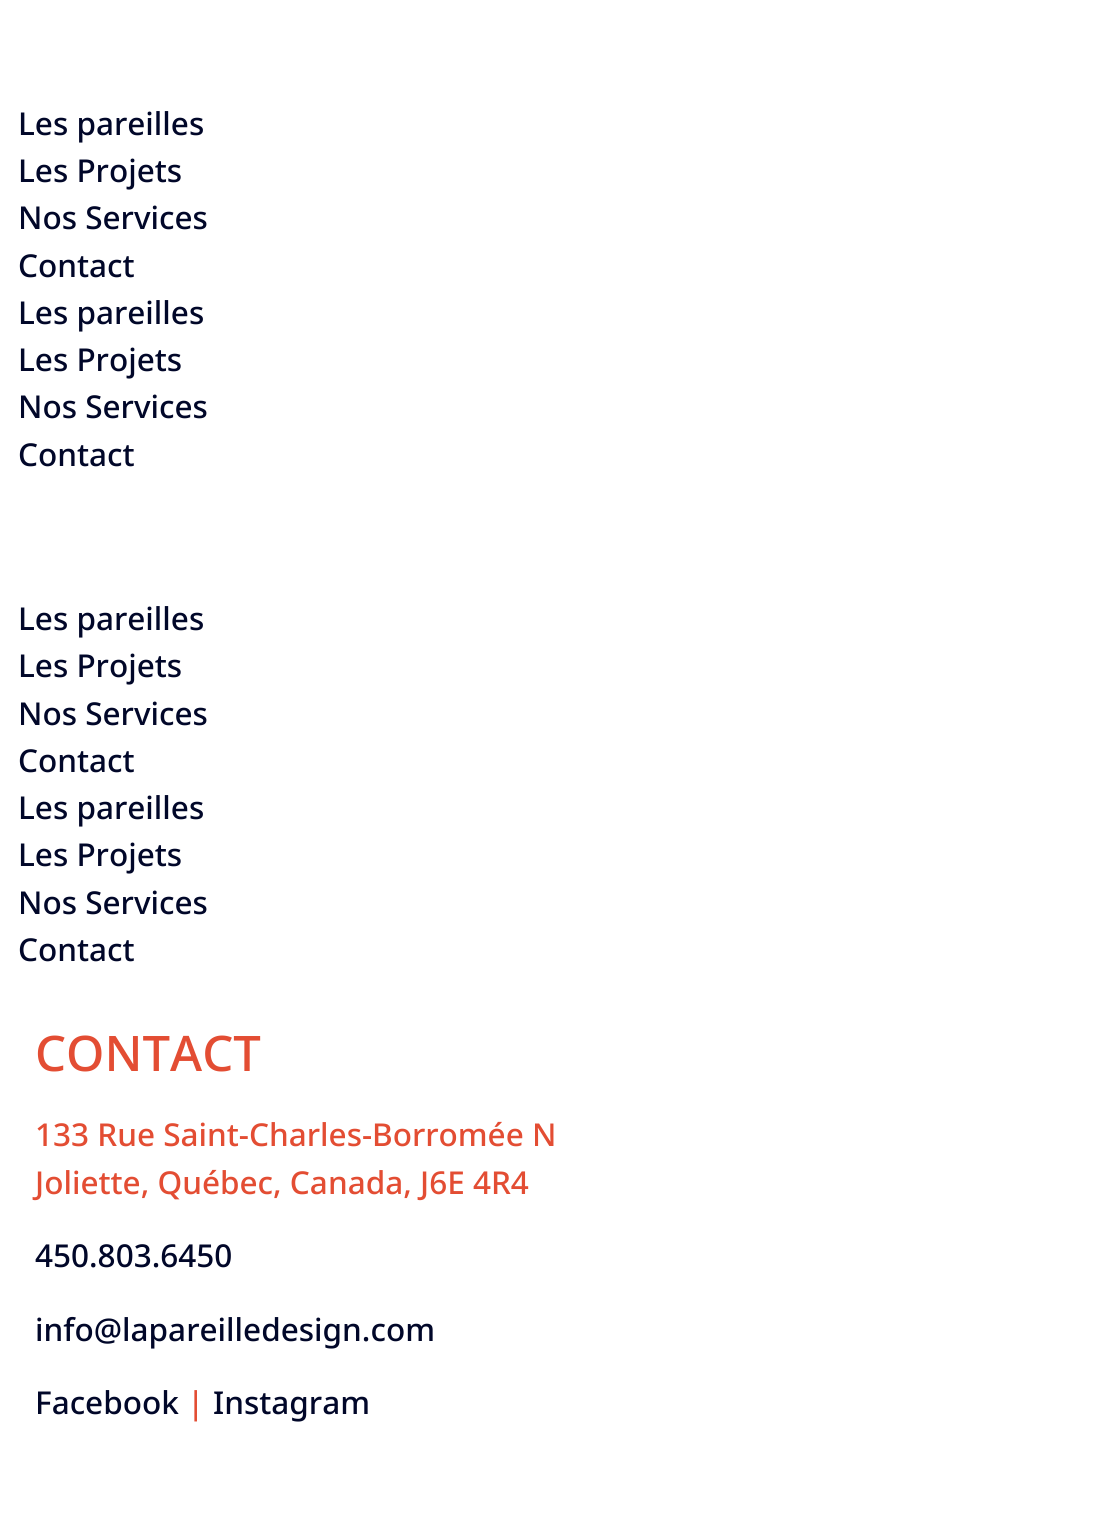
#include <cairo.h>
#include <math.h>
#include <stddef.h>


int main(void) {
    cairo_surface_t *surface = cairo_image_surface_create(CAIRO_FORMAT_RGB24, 1103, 1524);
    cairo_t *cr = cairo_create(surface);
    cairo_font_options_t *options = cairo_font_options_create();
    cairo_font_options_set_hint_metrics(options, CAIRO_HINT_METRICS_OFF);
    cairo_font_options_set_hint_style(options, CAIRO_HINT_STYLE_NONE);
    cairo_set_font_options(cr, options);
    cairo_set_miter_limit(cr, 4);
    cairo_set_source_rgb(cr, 1, 1, 1);
    cairo_paint(cr);
    cairo_select_font_face(cr, "Noto Sans Medium", CAIRO_FONT_SLANT_NORMAL, CAIRO_FONT_WEIGHT_NORMAL);
    cairo_set_font_size(cr, 31.5);
    cairo_set_source_rgb(cr, 0.004, 0.031, 0.161);
    cairo_move_to(cr, 18, 135);
    cairo_show_text(cr, "Les pareilles");
    cairo_move_to(cr, 18, 182);
    cairo_show_text(cr, "Les Projets");
    cairo_move_to(cr, 18, 229);
    cairo_show_text(cr, "Nos Services");
    cairo_move_to(cr, 18, 277);
    cairo_show_text(cr, "Contact");
    cairo_move_to(cr, 18, 324);
    cairo_show_text(cr, "Les pareilles");
    cairo_move_to(cr, 18, 371);
    cairo_show_text(cr, "Les Projets");
    cairo_move_to(cr, 18, 418);
    cairo_show_text(cr, "Nos Services");
    cairo_move_to(cr, 18, 466);
    cairo_show_text(cr, "Contact");
    cairo_move_to(cr, 18, 630);
    cairo_show_text(cr, "Les pareilles");
    cairo_move_to(cr, 18, 677);
    cairo_show_text(cr, "Les Projets");
    cairo_move_to(cr, 18, 725);
    cairo_show_text(cr, "Nos Services");
    cairo_move_to(cr, 18, 772);
    cairo_show_text(cr, "Contact");
    cairo_move_to(cr, 18, 819);
    cairo_show_text(cr, "Les pareilles");
    cairo_move_to(cr, 18, 866);
    cairo_show_text(cr, "Les Projets");
    cairo_move_to(cr, 18, 914);
    cairo_show_text(cr, "Nos Services");
    cairo_move_to(cr, 18, 961);
    cairo_show_text(cr, "Contact");
    cairo_set_font_size(cr, 49);
    cairo_set_source_rgb(cr, 0.89, 0.302, 0.2);
    cairo_move_to(cr, 35, 1071);
    cairo_show_text(cr, "CONTACT");
    cairo_set_font_size(cr, 31.5);
    cairo_move_to(cr, 35, 1146);
    cairo_show_text(cr, "133 Rue Saint-Charles-Borromée N");
    cairo_move_to(cr, 35, 1194);
    cairo_show_text(cr, "Joliette, Québec, Canada, J6E 4R4");
    cairo_set_source_rgb(cr, 0.004, 0.031, 0.161);
    cairo_move_to(cr, 35, 1267);
    cairo_show_text(cr, "450.803.6450");
    cairo_move_to(cr, 35, 1341);
    cairo_show_text(cr, "info@lapareilledesign.com");
    cairo_move_to(cr, 35, 1414);
    cairo_show_text(cr, "Facebook");
    cairo_set_source_rgb(cr, 0.89, 0.302, 0.2);
    cairo_move_to(cr, 187, 1414);
    cairo_show_text(cr, "|");
    cairo_set_source_rgb(cr, 0.004, 0.031, 0.161);
    cairo_move_to(cr, 213, 1414);
    cairo_show_text(cr, "Instagram");
    cairo_surface_write_to_png(surface, "page.png");
    cairo_font_options_destroy(options);
    cairo_destroy(cr);
    cairo_surface_destroy(surface);
    return 0;
}
